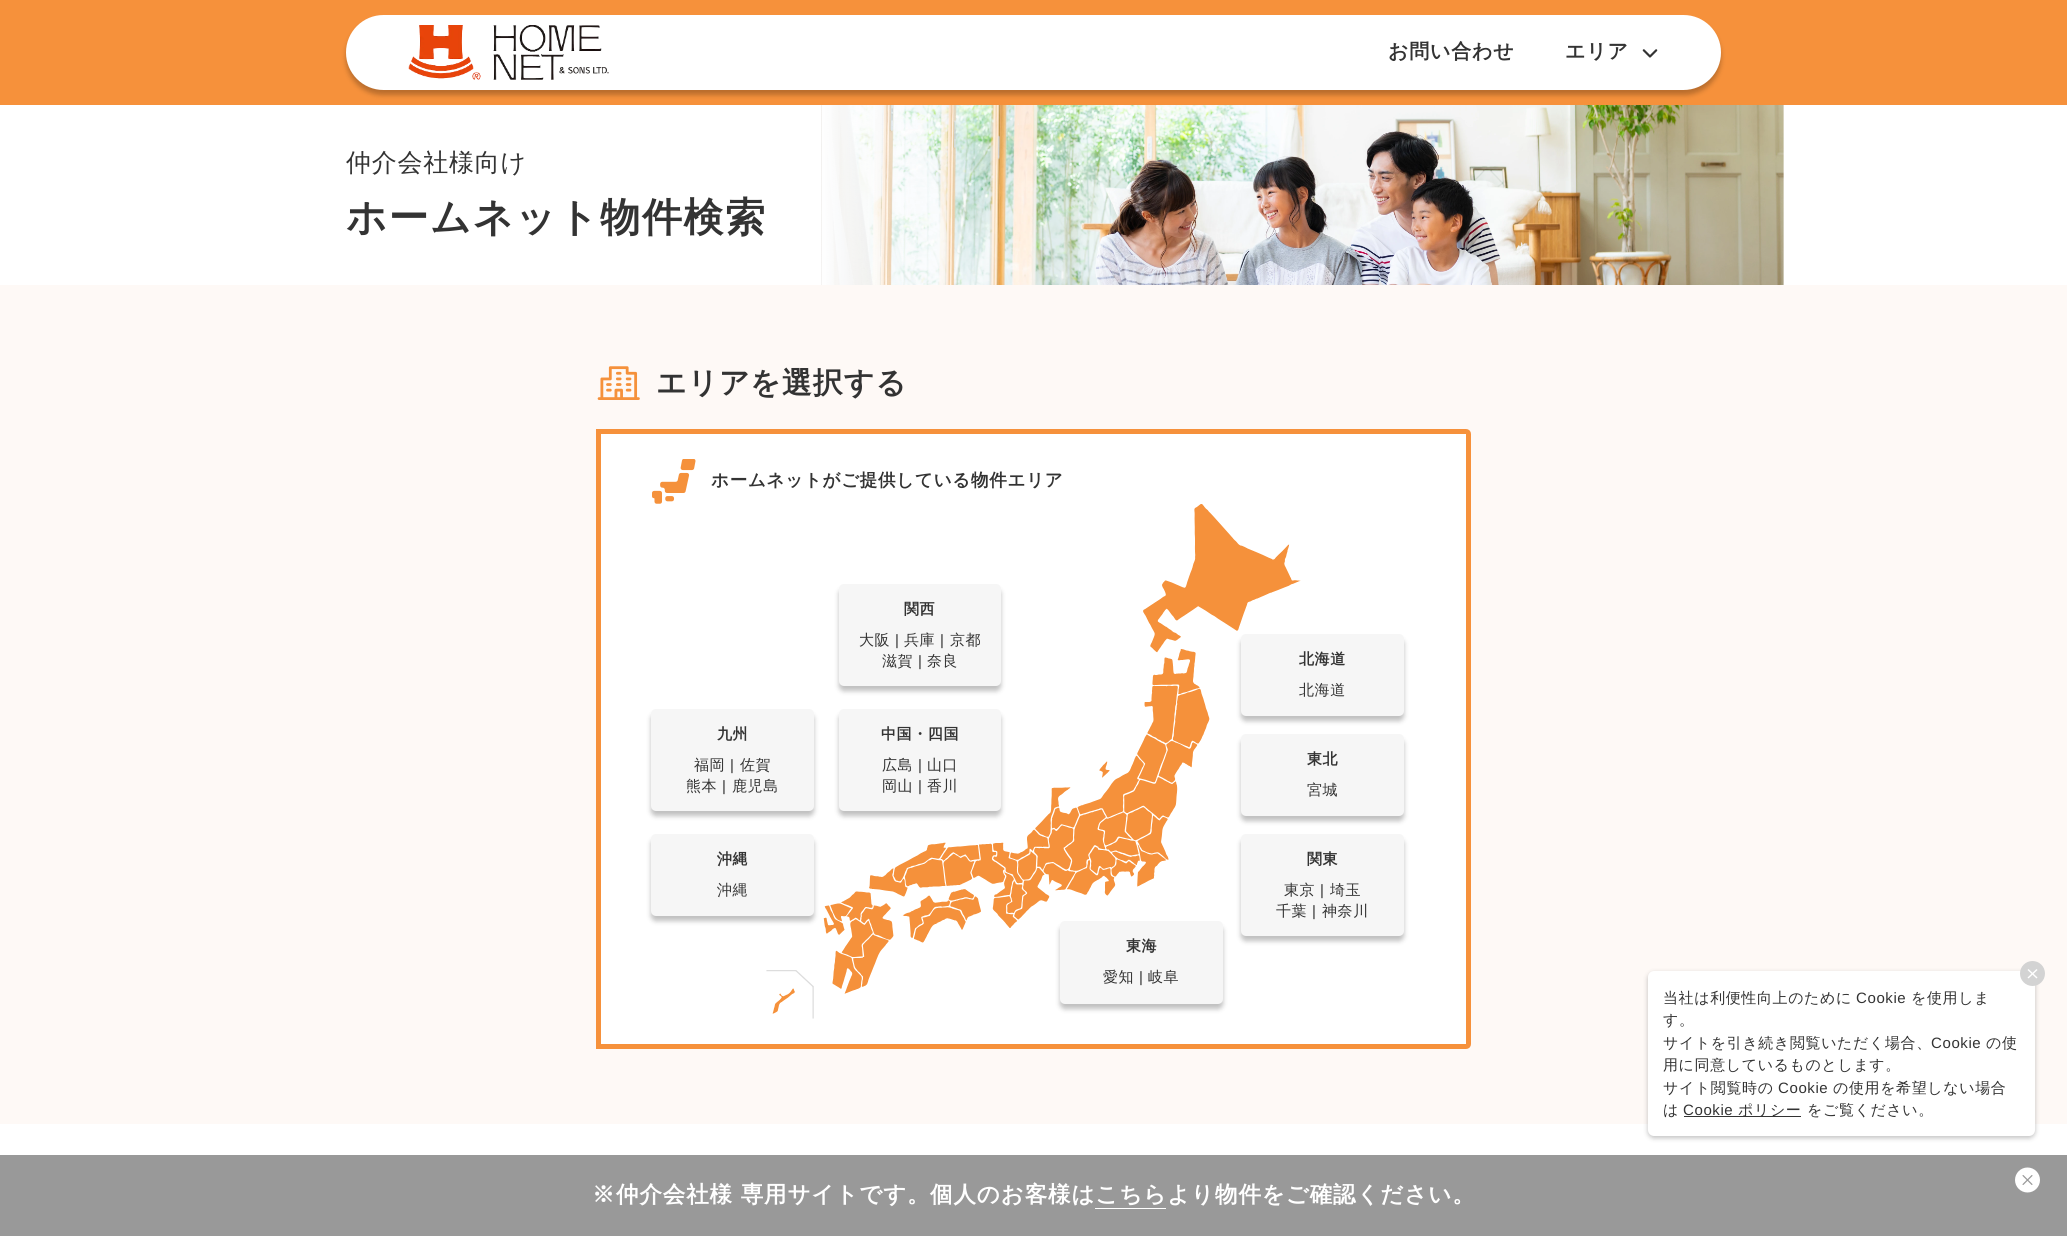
#include <cairo.h>
#include <math.h>
#include <stddef.h>


static void spaced_text(cairo_t *cr, double x, double y, const char *s, double letter, double word) {
    cairo_move_to(cr, x, y);
    while (*s) {
        char ch[5] = {0};
        int n = 0;
        do ch[n++] = *s++; while ((*s & 0xC0) == 0x80);
        cairo_show_text(cr, ch);
        cairo_rel_move_to(cr, letter + word * (*ch == ' '), 0);
    }
}

static void round_rect(cairo_t *cr, double x, double y, double w, double h, double r) {
    cairo_new_sub_path(cr);
    cairo_arc(cr, x + w - r, y + h - r, r, 0, M_PI / 2);
    cairo_arc(cr, x + r, y + h - r, r, M_PI / 2, M_PI);
    cairo_arc(cr, x + r, y + r, r, M_PI, 1.5 * M_PI);
    cairo_arc(cr, x + w - r, y + r, r, 1.5 * M_PI, 2 * M_PI);
    cairo_close_path(cr);
}

static void shadow(cairo_t *cr, double x, double y, double w, double h, double r, double blur, double alpha) {
    cairo_push_group_with_content(cr, CAIRO_CONTENT_ALPHA);
    cairo_set_operator(cr, CAIRO_OPERATOR_SOURCE);
    for (int i = 15; i >= -15 && fmin(w, h) + blur * i / 3 > 0; i -= 2) {
        double e = blur * i / 6;
        cairo_set_source_rgba(cr, 0, 0, 0, alpha * erfc((i - 1) / 8.5) / 2);
        round_rect(cr, x - e, y - e, w + 2 * e, h + 2 * e, fmax(0, fmin(r + e + blur * .6, fmin(w, h) / 2 + e)));
        cairo_fill(cr);
    }
    cairo_pattern_t *soft = cairo_pop_group(cr);
    cairo_mask(cr, soft);
    cairo_pattern_destroy(soft);
}

static void picture(cairo_t *cr, const char *path, double x, double y, double w, double h) {
    cairo_surface_t *image = cairo_image_surface_create_from_png(path);
    cairo_save(cr);
    cairo_set_source_surface(cr, image, x, y);
    cairo_rectangle(cr, x, y, w, h);
    cairo_fill(cr);
    cairo_restore(cr);
    cairo_surface_destroy(image);
}

int main(void) {
    cairo_surface_t *surface = cairo_image_surface_create(CAIRO_FORMAT_RGB24, 2067, 1236);
    cairo_t *cr = cairo_create(surface);
    cairo_font_options_t *options = cairo_font_options_create();
    cairo_font_options_set_hint_metrics(options, CAIRO_HINT_METRICS_OFF);
    cairo_font_options_set_hint_style(options, CAIRO_HINT_STYLE_NONE);
    cairo_set_font_options(cr, options);
    cairo_set_miter_limit(cr, 4);
    cairo_set_source_rgb(cr, 1, 1, 1);
    cairo_paint(cr);
    cairo_set_source_rgb(cr, 0.6, 0.6, 0.6);
    cairo_rectangle(cr, 0, 1155, 2067, 81);
    cairo_fill(cr);
    cairo_set_source_rgb(cr, 0.961, 0.569, 0.231);
    cairo_rectangle(cr, 0, 0, 2067, 105);
    cairo_fill(cr);
    cairo_set_source_rgb(cr, 0, 0, 0);
    shadow(cr, 346, 20, 1375, 75, 37.5, 2.5, 0.25);
    cairo_set_source_rgb(cr, 1, 1, 1);
    round_rect(cr, 346, 15, 1375, 75, 37.5);
    cairo_fill(cr);
    picture(cr, "img1.png", 408, 25, 201, 55);
    cairo_select_font_face(cr, "WenQuanYi Zen Hei", CAIRO_FONT_SLANT_NORMAL, CAIRO_FONT_WEIGHT_BOLD);
    cairo_set_font_size(cr, 20);
    cairo_set_source_rgb(cr, 0.2, 0.2, 0.2);
    spaced_text(cr, 1388, 58, "お問い合わせ", 0.75, 0);
    spaced_text(cr, 1565, 58, "エリア", 0.75, 0);
    picture(cr, "img2.png", 1642, 49, 16, 9);
    picture(cr, "img3.png", 821, 105, 963, 180);
    cairo_select_font_face(cr, "WenQuanYi Zen Hei Medium", CAIRO_FONT_SLANT_NORMAL, CAIRO_FONT_WEIGHT_NORMAL);
    cairo_set_font_size(cr, 25);
    spaced_text(cr, 346, 171, "仲介会社様向け", 0.75, 0);
    cairo_select_font_face(cr, "WenQuanYi Zen Hei", CAIRO_FONT_SLANT_NORMAL, CAIRO_FONT_WEIGHT_BOLD);
    cairo_set_font_size(cr, 40);
    spaced_text(cr, 346, 231, "ホームネット物件検索", 1.6, 0);
    cairo_set_source_rgb(cr, 0.996, 0.976, 0.961);
    cairo_rectangle(cr, 0, 285, 2067, 839);
    cairo_fill(cr);
    picture(cr, "img4.png", 597, 366, 43, 34);
    cairo_set_font_size(cr, 30);
    cairo_set_source_rgb(cr, 0.2, 0.2, 0.2);
    spaced_text(cr, 656, 393, "エリア", 0.75, 0);
    spaced_text(cr, 750, 393, "を選択する", 1, 0);
    cairo_set_source_rgb(cr, 1, 1, 1);
    cairo_new_path(cr);
    cairo_move_to(cr, 598.5, 431.5);
    cairo_line_to(cr, 1466, 431.5);
    cairo_curve_to(cr, 1467.5, 431.5, 1468.5, 432.5, 1468.5, 434);
    cairo_line_to(cr, 1468.5, 1044);
    cairo_curve_to(cr, 1468.5, 1045.5, 1467.5, 1046.5, 1466, 1046.5);
    cairo_line_to(cr, 598.5, 1046.5);
    cairo_close_path(cr);
    cairo_fill_preserve(cr);
    cairo_set_source_rgb(cr, 0.961, 0.569, 0.231);
    cairo_set_line_width(cr, 5);
    cairo_stroke(cr);
    picture(cr, "img5.png", 652, 459, 44, 45);
    cairo_set_font_size(cr, 17.5);
    cairo_set_source_rgb(cr, 0.2, 0.2, 0.2);
    spaced_text(cr, 711, 486, "ホームネットがご提供している物件エリア", 0.75, 0);
    picture(cr, "img6.png", 766, 504, 535, 515);
    cairo_set_source_rgb(cr, 0, 0, 0);
    shadow(cr, 839, 589, 162, 102, 5, 2.5, 0.25);
    cairo_set_source_rgb(cr, 0.961, 0.961, 0.961);
    round_rect(cr, 839, 584, 162, 102, 5);
    cairo_fill(cr);
    cairo_set_font_size(cr, 15);
    cairo_set_source_rgb(cr, 0.2, 0.2, 0.2);
    spaced_text(cr, 904, 614, "関西", 0.6, 0);
    cairo_select_font_face(cr, "WenQuanYi Zen Hei Medium", CAIRO_FONT_SLANT_NORMAL, CAIRO_FONT_WEIGHT_NORMAL);
    spaced_text(cr, 859, 645, "大阪", 0.6, 0);
    cairo_select_font_face(cr, "Liberation Sans", CAIRO_FONT_SLANT_NORMAL, CAIRO_FONT_WEIGHT_NORMAL);
    spaced_text(cr, 895, 645, "|", 0.6, 0);
    cairo_select_font_face(cr, "WenQuanYi Zen Hei Medium", CAIRO_FONT_SLANT_NORMAL, CAIRO_FONT_WEIGHT_NORMAL);
    spaced_text(cr, 904, 645, "兵庫", 0.6, 0);
    cairo_select_font_face(cr, "Liberation Sans", CAIRO_FONT_SLANT_NORMAL, CAIRO_FONT_WEIGHT_NORMAL);
    spaced_text(cr, 940, 645, "|", 0.6, 0);
    cairo_select_font_face(cr, "WenQuanYi Zen Hei Medium", CAIRO_FONT_SLANT_NORMAL, CAIRO_FONT_WEIGHT_NORMAL);
    spaced_text(cr, 950, 645, "京都", 0.6, 0);
    spaced_text(cr, 882, 666, "滋賀", 0.6, 0);
    cairo_select_font_face(cr, "Liberation Sans", CAIRO_FONT_SLANT_NORMAL, CAIRO_FONT_WEIGHT_NORMAL);
    spaced_text(cr, 918, 666, "|", 0.6, 0);
    cairo_select_font_face(cr, "WenQuanYi Zen Hei Medium", CAIRO_FONT_SLANT_NORMAL, CAIRO_FONT_WEIGHT_NORMAL);
    spaced_text(cr, 927, 666, "奈良", 0.6, 0);
    cairo_set_source_rgb(cr, 0, 0, 0);
    shadow(cr, 1241, 639, 163, 82, 5, 2.5, 0.25);
    cairo_set_source_rgb(cr, 0.961, 0.961, 0.961);
    round_rect(cr, 1241, 634, 163, 82, 5);
    cairo_fill(cr);
    cairo_select_font_face(cr, "WenQuanYi Zen Hei", CAIRO_FONT_SLANT_NORMAL, CAIRO_FONT_WEIGHT_BOLD);
    cairo_set_source_rgb(cr, 0.2, 0.2, 0.2);
    spaced_text(cr, 1299, 664, "北海道", 0.6, 0);
    cairo_select_font_face(cr, "WenQuanYi Zen Hei Medium", CAIRO_FONT_SLANT_NORMAL, CAIRO_FONT_WEIGHT_NORMAL);
    spaced_text(cr, 1299, 695, "北海道", 0.6, 0);
    cairo_set_source_rgb(cr, 0, 0, 0);
    shadow(cr, 651, 714, 163, 102, 5, 2.5, 0.25);
    cairo_set_source_rgb(cr, 0.961, 0.961, 0.961);
    round_rect(cr, 651, 709, 163, 102, 5);
    cairo_fill(cr);
    cairo_select_font_face(cr, "WenQuanYi Zen Hei", CAIRO_FONT_SLANT_NORMAL, CAIRO_FONT_WEIGHT_BOLD);
    cairo_set_source_rgb(cr, 0.2, 0.2, 0.2);
    spaced_text(cr, 717, 739, "九州", 0.6, 0);
    cairo_select_font_face(cr, "WenQuanYi Zen Hei Medium", CAIRO_FONT_SLANT_NORMAL, CAIRO_FONT_WEIGHT_NORMAL);
    spaced_text(cr, 694, 770, "福岡", 0.6, 0);
    cairo_select_font_face(cr, "Liberation Sans", CAIRO_FONT_SLANT_NORMAL, CAIRO_FONT_WEIGHT_NORMAL);
    spaced_text(cr, 730, 770, "|", 0.6, 0);
    cairo_select_font_face(cr, "WenQuanYi Zen Hei Medium", CAIRO_FONT_SLANT_NORMAL, CAIRO_FONT_WEIGHT_NORMAL);
    spaced_text(cr, 740, 770, "佐賀", 0.6, 0);
    spaced_text(cr, 686, 791, "熊本", 0.6, 0);
    cairo_select_font_face(cr, "Liberation Sans", CAIRO_FONT_SLANT_NORMAL, CAIRO_FONT_WEIGHT_NORMAL);
    spaced_text(cr, 722, 791, "|", 0.6, 0);
    cairo_select_font_face(cr, "WenQuanYi Zen Hei Medium", CAIRO_FONT_SLANT_NORMAL, CAIRO_FONT_WEIGHT_NORMAL);
    spaced_text(cr, 732, 791, "鹿児島", 0.6, 0);
    cairo_set_source_rgb(cr, 0, 0, 0);
    shadow(cr, 839, 714, 162, 102, 5, 2.5, 0.25);
    cairo_set_source_rgb(cr, 0.961, 0.961, 0.961);
    round_rect(cr, 839, 709, 162, 102, 5);
    cairo_fill(cr);
    cairo_select_font_face(cr, "WenQuanYi Zen Hei", CAIRO_FONT_SLANT_NORMAL, CAIRO_FONT_WEIGHT_BOLD);
    cairo_set_source_rgb(cr, 0.2, 0.2, 0.2);
    spaced_text(cr, 881, 739, "中国・四国", 0.6, 0);
    cairo_select_font_face(cr, "WenQuanYi Zen Hei Medium", CAIRO_FONT_SLANT_NORMAL, CAIRO_FONT_WEIGHT_NORMAL);
    spaced_text(cr, 882, 770, "広島", 0.6, 0);
    cairo_select_font_face(cr, "Liberation Sans", CAIRO_FONT_SLANT_NORMAL, CAIRO_FONT_WEIGHT_NORMAL);
    spaced_text(cr, 918, 770, "|", 0.6, 0);
    cairo_select_font_face(cr, "WenQuanYi Zen Hei Medium", CAIRO_FONT_SLANT_NORMAL, CAIRO_FONT_WEIGHT_NORMAL);
    spaced_text(cr, 927, 770, "山口", 0.6, 0);
    spaced_text(cr, 882, 791, "岡山", 0.6, 0);
    cairo_select_font_face(cr, "Liberation Sans", CAIRO_FONT_SLANT_NORMAL, CAIRO_FONT_WEIGHT_NORMAL);
    spaced_text(cr, 918, 791, "|", 0.6, 0);
    cairo_select_font_face(cr, "WenQuanYi Zen Hei Medium", CAIRO_FONT_SLANT_NORMAL, CAIRO_FONT_WEIGHT_NORMAL);
    spaced_text(cr, 927, 791, "香川", 0.6, 0);
    cairo_set_source_rgb(cr, 0, 0, 0);
    shadow(cr, 1241, 739, 163, 82, 5, 2.5, 0.25);
    cairo_set_source_rgb(cr, 0.961, 0.961, 0.961);
    round_rect(cr, 1241, 734, 163, 82, 5);
    cairo_fill(cr);
    cairo_select_font_face(cr, "WenQuanYi Zen Hei", CAIRO_FONT_SLANT_NORMAL, CAIRO_FONT_WEIGHT_BOLD);
    cairo_set_source_rgb(cr, 0.2, 0.2, 0.2);
    spaced_text(cr, 1307, 764, "東北", 0.6, 0);
    cairo_select_font_face(cr, "WenQuanYi Zen Hei Medium", CAIRO_FONT_SLANT_NORMAL, CAIRO_FONT_WEIGHT_NORMAL);
    spaced_text(cr, 1307, 795, "宮城", 0.6, 0);
    cairo_set_source_rgb(cr, 0, 0, 0);
    shadow(cr, 651, 839, 163, 82, 5, 2.5, 0.25);
    cairo_set_source_rgb(cr, 0.961, 0.961, 0.961);
    round_rect(cr, 651, 834, 163, 82, 5);
    cairo_fill(cr);
    cairo_select_font_face(cr, "WenQuanYi Zen Hei", CAIRO_FONT_SLANT_NORMAL, CAIRO_FONT_WEIGHT_BOLD);
    cairo_set_source_rgb(cr, 0.2, 0.2, 0.2);
    spaced_text(cr, 717, 864, "沖縄", 0.6, 0);
    cairo_select_font_face(cr, "WenQuanYi Zen Hei Medium", CAIRO_FONT_SLANT_NORMAL, CAIRO_FONT_WEIGHT_NORMAL);
    spaced_text(cr, 717, 895, "沖縄", 0.6, 0);
    cairo_set_source_rgb(cr, 0, 0, 0);
    shadow(cr, 1241, 839, 163, 102, 5, 2.5, 0.25);
    cairo_set_source_rgb(cr, 0.961, 0.961, 0.961);
    round_rect(cr, 1241, 834, 163, 102, 5);
    cairo_fill(cr);
    cairo_select_font_face(cr, "WenQuanYi Zen Hei", CAIRO_FONT_SLANT_NORMAL, CAIRO_FONT_WEIGHT_BOLD);
    cairo_set_source_rgb(cr, 0.2, 0.2, 0.2);
    spaced_text(cr, 1307, 864, "関東", 0.6, 0);
    cairo_select_font_face(cr, "WenQuanYi Zen Hei Medium", CAIRO_FONT_SLANT_NORMAL, CAIRO_FONT_WEIGHT_NORMAL);
    spaced_text(cr, 1284, 895, "東京", 0.6, 0);
    cairo_select_font_face(cr, "Liberation Sans", CAIRO_FONT_SLANT_NORMAL, CAIRO_FONT_WEIGHT_NORMAL);
    spaced_text(cr, 1320, 895, "|", 0.6, 0);
    cairo_select_font_face(cr, "WenQuanYi Zen Hei Medium", CAIRO_FONT_SLANT_NORMAL, CAIRO_FONT_WEIGHT_NORMAL);
    spaced_text(cr, 1330, 895, "埼玉", 0.6, 0);
    spaced_text(cr, 1276, 916, "千葉", 0.6, 0);
    cairo_select_font_face(cr, "Liberation Sans", CAIRO_FONT_SLANT_NORMAL, CAIRO_FONT_WEIGHT_NORMAL);
    spaced_text(cr, 1312, 916, "|", 0.6, 0);
    cairo_select_font_face(cr, "WenQuanYi Zen Hei Medium", CAIRO_FONT_SLANT_NORMAL, CAIRO_FONT_WEIGHT_NORMAL);
    spaced_text(cr, 1322, 916, "神奈川", 0.6, 0);
    cairo_set_source_rgb(cr, 0, 0, 0);
    shadow(cr, 1060, 926, 163, 83, 5, 2.5, 0.25);
    cairo_set_source_rgb(cr, 0.961, 0.961, 0.961);
    round_rect(cr, 1060, 921, 163, 83, 5);
    cairo_fill(cr);
    cairo_select_font_face(cr, "WenQuanYi Zen Hei", CAIRO_FONT_SLANT_NORMAL, CAIRO_FONT_WEIGHT_BOLD);
    cairo_set_source_rgb(cr, 0.2, 0.2, 0.2);
    spaced_text(cr, 1126, 951, "東海", 0.6, 0);
    cairo_select_font_face(cr, "WenQuanYi Zen Hei Medium", CAIRO_FONT_SLANT_NORMAL, CAIRO_FONT_WEIGHT_NORMAL);
    spaced_text(cr, 1103, 982, "愛知", 0.6, 0);
    cairo_select_font_face(cr, "Liberation Sans", CAIRO_FONT_SLANT_NORMAL, CAIRO_FONT_WEIGHT_NORMAL);
    spaced_text(cr, 1139, 982, "|", 0.6, 0);
    cairo_select_font_face(cr, "WenQuanYi Zen Hei Medium", CAIRO_FONT_SLANT_NORMAL, CAIRO_FONT_WEIGHT_NORMAL);
    spaced_text(cr, 1148, 982, "岐阜", 0.6, 0);
    cairo_select_font_face(cr, "WenQuanYi Zen Hei", CAIRO_FONT_SLANT_NORMAL, CAIRO_FONT_WEIGHT_BOLD);
    cairo_set_font_size(cr, 22.5);
    cairo_set_source_rgb(cr, 1, 1, 1);
    spaced_text(cr, 592, 1202, "※", 0.75, 0);
    spaced_text(cr, 616, 1202, "仲介会社様 専用サイトです。", 0.9, 0);
    spaced_text(cr, 930, 1202, "個人のお客様はこちらより物件をご確認ください。", 0.9, 0);
    cairo_rectangle(cr, 1095, 1208, 71, 1);
    cairo_fill(cr);
    picture(cr, "img7.png", 2015, 1167, 25, 26);
    cairo_set_source_rgb(cr, 0, 0, 0);
    shadow(cr, 1648, 973, 387, 165, 6, 2.5, 0.25);
    cairo_set_source_rgb(cr, 1, 1, 1);
    round_rect(cr, 1648, 971, 387, 165, 6);
    cairo_fill(cr);
    cairo_set_source_rgb(cr, 0.827, 0.827, 0.827);
    cairo_arc(cr, 2032.5, 973.5, 12.5, 0, 2 * M_PI);
    cairo_fill(cr);
    cairo_set_source_rgb(cr, 1, 1, 1);
    cairo_new_path(cr);
    cairo_move_to(cr, 2028.5, 969);
    cairo_line_to(cr, 2037.5, 977.5);
    cairo_line_to(cr, 2036.5, 978.5);
    cairo_line_to(cr, 2027.5, 970);
    cairo_close_path(cr);
    cairo_fill(cr);
    cairo_new_path(cr);
    cairo_move_to(cr, 2027.5, 977.5);
    cairo_line_to(cr, 2036.5, 969);
    cairo_line_to(cr, 2037.5, 970);
    cairo_line_to(cr, 2028.5, 978.5);
    cairo_close_path(cr);
    cairo_fill(cr);
    cairo_select_font_face(cr, "WenQuanYi Zen Hei Medium", CAIRO_FONT_SLANT_NORMAL, CAIRO_FONT_WEIGHT_NORMAL);
    cairo_set_font_size(cr, 15);
    cairo_set_source_rgb(cr, 0.2, 0.2, 0.2);
    spaced_text(cr, 1663, 1003, "当社は利便性向上のために", 0.6, 0);
    cairo_select_font_face(cr, "Liberation Sans", CAIRO_FONT_SLANT_NORMAL, CAIRO_FONT_WEIGHT_NORMAL);
    spaced_text(cr, 1856, 1003, "Cookie", 0.6, 0);
    cairo_select_font_face(cr, "WenQuanYi Zen Hei Medium", CAIRO_FONT_SLANT_NORMAL, CAIRO_FONT_WEIGHT_NORMAL);
    spaced_text(cr, 1911, 1003, "を使用しま", 0.6, 0);
    spaced_text(cr, 1663, 1025, "す。", 0.6, 0);
    spaced_text(cr, 1663, 1048, "サイトを引き続き閲覧いただく場合、", 0.6, 0);
    cairo_select_font_face(cr, "Liberation Sans", CAIRO_FONT_SLANT_NORMAL, CAIRO_FONT_WEIGHT_NORMAL);
    spaced_text(cr, 1931, 1048, "Cookie", 0.6, 0);
    cairo_select_font_face(cr, "WenQuanYi Zen Hei Medium", CAIRO_FONT_SLANT_NORMAL, CAIRO_FONT_WEIGHT_NORMAL);
    spaced_text(cr, 1986, 1048, "の使", 0.6, 0);
    spaced_text(cr, 1663, 1070, "用に同意しているものとします。", 0.6, 0);
    spaced_text(cr, 1663, 1093, "サイト閲覧時の", 0.6, 0);
    cairo_select_font_face(cr, "Liberation Sans", CAIRO_FONT_SLANT_NORMAL, CAIRO_FONT_WEIGHT_NORMAL);
    spaced_text(cr, 1778, 1093, "Cookie", 0.6, 0);
    cairo_select_font_face(cr, "WenQuanYi Zen Hei Medium", CAIRO_FONT_SLANT_NORMAL, CAIRO_FONT_WEIGHT_NORMAL);
    spaced_text(cr, 1833, 1093, "の使用を希望しない場合", 0.6, 0);
    spaced_text(cr, 1663, 1115, "は", 0.6, 0);
    cairo_select_font_face(cr, "Liberation Sans", CAIRO_FONT_SLANT_NORMAL, CAIRO_FONT_WEIGHT_NORMAL);
    spaced_text(cr, 1683, 1115, "Cookie", 0.6, 0);
    cairo_rectangle(cr, 1684, 1116, 117, 1);
    cairo_fill(cr);
    cairo_select_font_face(cr, "WenQuanYi Zen Hei Medium", CAIRO_FONT_SLANT_NORMAL, CAIRO_FONT_WEIGHT_NORMAL);
    spaced_text(cr, 1738, 1115, "ポリシー", 0.6, 0);
    spaced_text(cr, 1807, 1115, "をご覧ください。", 0.6, 0);
    cairo_surface_write_to_png(surface, "page.png");
    cairo_font_options_destroy(options);
    cairo_destroy(cr);
    cairo_surface_destroy(surface);
    return 0;
}
